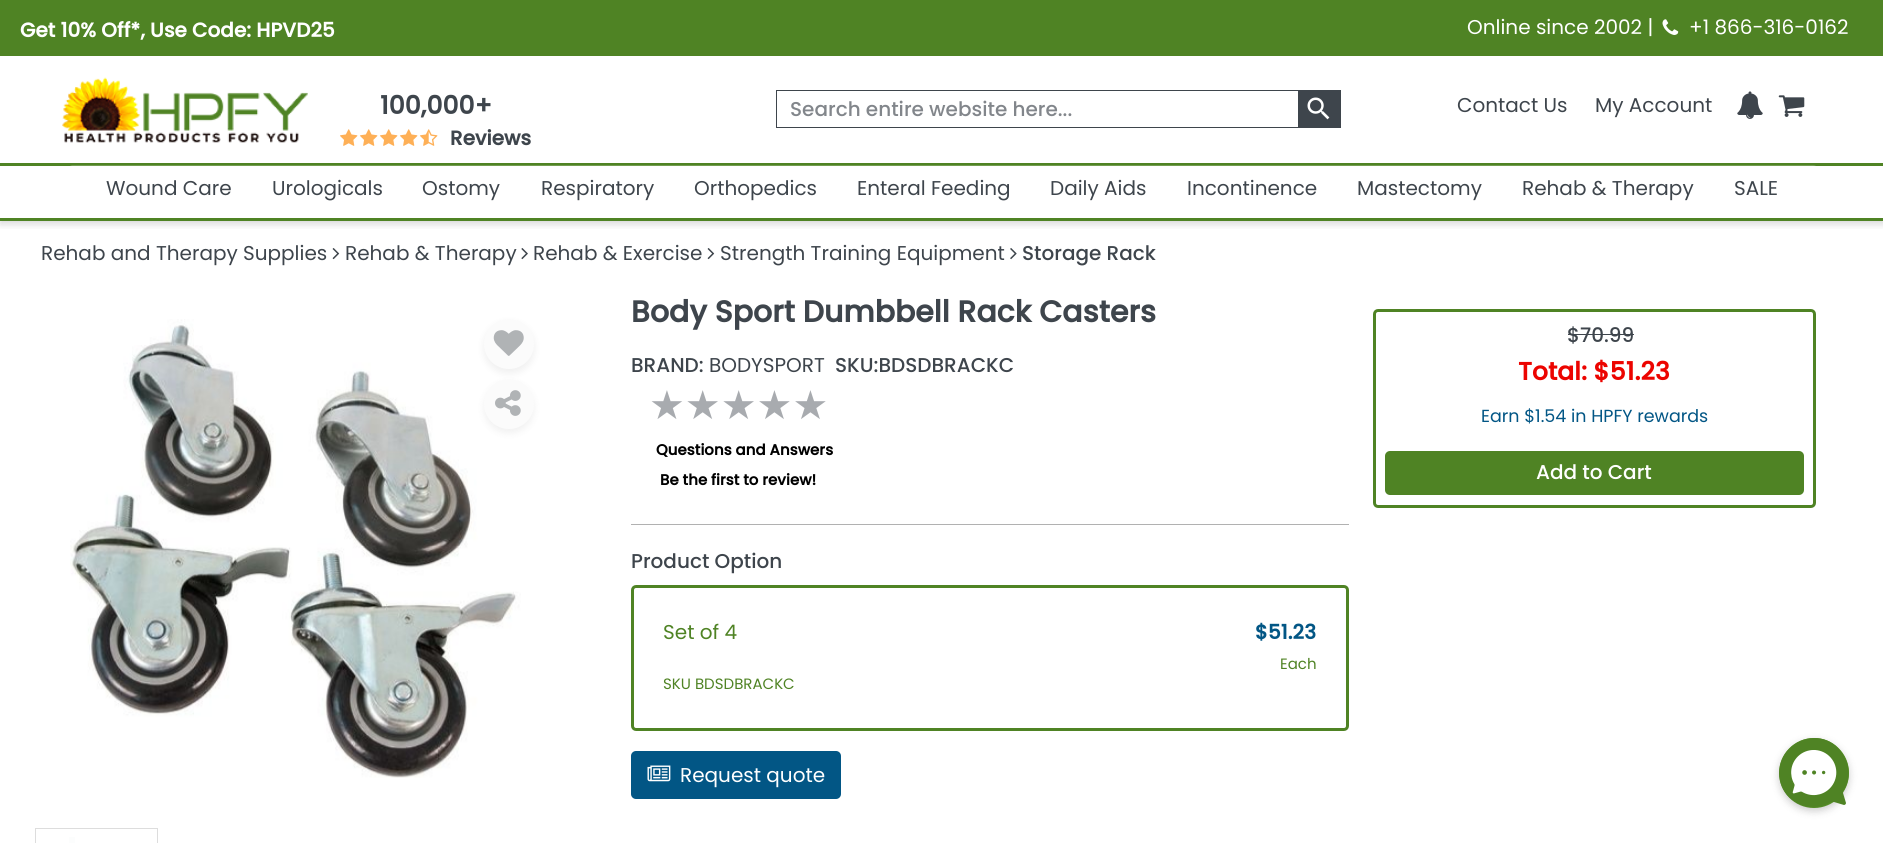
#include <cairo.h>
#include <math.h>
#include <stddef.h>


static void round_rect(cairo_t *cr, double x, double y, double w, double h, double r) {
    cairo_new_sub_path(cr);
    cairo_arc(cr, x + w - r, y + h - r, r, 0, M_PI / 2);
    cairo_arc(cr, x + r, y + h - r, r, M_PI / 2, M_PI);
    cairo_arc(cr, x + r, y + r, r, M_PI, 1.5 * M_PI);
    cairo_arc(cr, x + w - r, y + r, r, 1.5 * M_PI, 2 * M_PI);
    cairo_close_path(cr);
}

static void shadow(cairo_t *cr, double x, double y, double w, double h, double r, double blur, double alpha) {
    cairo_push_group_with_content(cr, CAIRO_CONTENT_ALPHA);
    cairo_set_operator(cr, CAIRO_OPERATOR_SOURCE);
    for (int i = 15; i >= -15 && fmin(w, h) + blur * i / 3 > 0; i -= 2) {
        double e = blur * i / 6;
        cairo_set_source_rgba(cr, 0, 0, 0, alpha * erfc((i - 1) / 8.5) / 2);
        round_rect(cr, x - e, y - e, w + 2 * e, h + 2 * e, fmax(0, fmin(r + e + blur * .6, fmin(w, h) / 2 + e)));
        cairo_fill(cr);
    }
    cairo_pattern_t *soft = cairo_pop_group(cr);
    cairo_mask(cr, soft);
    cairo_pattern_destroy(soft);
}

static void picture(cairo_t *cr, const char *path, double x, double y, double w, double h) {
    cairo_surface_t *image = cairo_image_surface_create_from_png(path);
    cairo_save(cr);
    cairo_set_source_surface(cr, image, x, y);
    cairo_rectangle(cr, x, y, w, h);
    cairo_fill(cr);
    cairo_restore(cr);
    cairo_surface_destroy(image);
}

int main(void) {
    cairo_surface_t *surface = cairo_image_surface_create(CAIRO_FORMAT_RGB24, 1883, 843);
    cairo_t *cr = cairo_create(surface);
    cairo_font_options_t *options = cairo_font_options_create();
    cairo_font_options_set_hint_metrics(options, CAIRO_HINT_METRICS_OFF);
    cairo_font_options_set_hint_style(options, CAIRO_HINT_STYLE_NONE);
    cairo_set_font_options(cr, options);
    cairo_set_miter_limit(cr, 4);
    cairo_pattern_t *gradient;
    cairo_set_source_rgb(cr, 1, 1, 1);
    cairo_paint(cr);
    cairo_save(cr);
    cairo_rectangle(cr, 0, 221, 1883, 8);
    cairo_clip(cr);
    cairo_set_source_rgb(cr, 0, 0, 0);
    shadow(cr, 0, 4, 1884, 220, 0, 4, 0.16);
    cairo_restore(cr);
    cairo_set_source_rgb(cr, 0.31, 0.514, 0.141);
    cairo_rectangle(cr, 0, 218, 1883, 3);
    cairo_fill(cr);
    cairo_rectangle(cr, 0, 0, 1883, 56);
    cairo_fill(cr);
    cairo_select_font_face(cr, "Poppins", CAIRO_FONT_SLANT_NORMAL, CAIRO_FONT_WEIGHT_BOLD);
    cairo_set_font_size(cr, 20);
    cairo_set_source_rgb(cr, 1, 1, 1);
    cairo_move_to(cr, 20, 37);
    cairo_show_text(cr, "Get 10% Off*, Use Code: HPVD25");
    cairo_select_font_face(cr, "Poppins", CAIRO_FONT_SLANT_NORMAL, CAIRO_FONT_WEIGHT_NORMAL);
    cairo_move_to(cr, 1467, 34);
    cairo_show_text(cr, "Online since 2002 |");
    picture(cr, "img1.png", 1662, 19, 17, 16);
    cairo_move_to(cr, 1689, 34);
    cairo_show_text(cr, "+1 866-316-0162");
    picture(cr, "img2.png", 62, 77, 246, 66);
    cairo_select_font_face(cr, "Poppins", CAIRO_FONT_SLANT_NORMAL, CAIRO_FONT_WEIGHT_BOLD);
    cairo_set_font_size(cr, 25);
    cairo_set_source_rgb(cr, 0.243, 0.271, 0.298);
    cairo_move_to(cr, 380, 114);
    cairo_show_text(cr, "100,000+");
    picture(cr, "img3.png", 340, 129, 18, 17);
    picture(cr, "img3.png", 360, 129, 18, 17);
    picture(cr, "img3.png", 380, 129, 18, 17);
    picture(cr, "img3.png", 400, 129, 18, 17);
    picture(cr, "img4.png", 420, 129, 18, 17);
    cairo_set_font_size(cr, 20);
    cairo_move_to(cr, 450, 145);
    cairo_show_text(cr, "Reviews");
    cairo_rectangle(cr, 776.5, 90.5, 564, 37);
    cairo_set_line_width(cr, 1);
    cairo_stroke(cr);
    cairo_select_font_face(cr, "Poppins Medium", CAIRO_FONT_SLANT_NORMAL, CAIRO_FONT_WEIGHT_NORMAL);
    cairo_set_source_rgb(cr, 0.51, 0.525, 0.545);
    cairo_move_to(cr, 790, 116);
    cairo_show_text(cr, "Search entire website here...");
    cairo_set_source_rgb(cr, 0.243, 0.271, 0.298);
    cairo_rectangle(cr, 1298, 91, 42, 36);
    cairo_fill(cr);
    picture(cr, "img5.png", 1307, 97, 23, 23);
    cairo_select_font_face(cr, "Poppins", CAIRO_FONT_SLANT_NORMAL, CAIRO_FONT_WEIGHT_NORMAL);
    cairo_move_to(cr, 1457, 112);
    cairo_show_text(cr, "Contact Us");
    cairo_move_to(cr, 1595, 112);
    cairo_show_text(cr, "My Account");
    picture(cr, "img6.png", 1737, 91, 26, 28);
    picture(cr, "img7.png", 1778, 95, 27, 22);
    cairo_set_source_rgb(cr, 0.31, 0.514, 0.141);
    cairo_rectangle(cr, 0, 163, 1883, 3);
    cairo_fill(cr);
    round_rect(cr, 68.5, 165.5, 1749, 52, 4.5);
    cairo_set_source_rgba(cr, 1, 1, 1, 0.2);
    cairo_stroke(cr);
    cairo_set_source_rgb(cr, 0.243, 0.271, 0.298);
    cairo_move_to(cr, 106, 195);
    cairo_show_text(cr, "Wound Care");
    cairo_move_to(cr, 272, 195);
    cairo_show_text(cr, "Urologicals");
    cairo_move_to(cr, 422, 195);
    cairo_show_text(cr, "Ostomy");
    cairo_move_to(cr, 541, 195);
    cairo_show_text(cr, "Respiratory");
    cairo_move_to(cr, 694, 195);
    cairo_show_text(cr, "Orthopedics");
    cairo_move_to(cr, 857, 195);
    cairo_show_text(cr, "Enteral Feeding");
    cairo_move_to(cr, 1050, 195);
    cairo_show_text(cr, "Daily Aids");
    cairo_move_to(cr, 1187, 195);
    cairo_show_text(cr, "Incontinence");
    cairo_move_to(cr, 1357, 195);
    cairo_show_text(cr, "Mastectomy");
    cairo_move_to(cr, 1522, 195);
    cairo_show_text(cr, "Rehab & Therapy");
    cairo_move_to(cr, 1734, 195);
    cairo_show_text(cr, "SALE");
    cairo_move_to(cr, 41, 260);
    cairo_show_text(cr, "Rehab and Therapy Supplies");
    picture(cr, "img8.png", 332, 248, 8, 12);
    cairo_move_to(cr, 345, 260);
    cairo_show_text(cr, "Rehab & Therapy");
    picture(cr, "img9.png", 521, 248, 7, 12);
    cairo_move_to(cr, 533, 260);
    cairo_show_text(cr, "Rehab & Exercise");
    picture(cr, "img8.png", 707, 248, 8, 12);
    cairo_move_to(cr, 720, 260);
    cairo_show_text(cr, "Strength Training Equipment");
    picture(cr, "img10.png", 1010, 248, 7, 12);
    cairo_select_font_face(cr, "Poppins Medium", CAIRO_FONT_SLANT_NORMAL, CAIRO_FONT_WEIGHT_NORMAL);
    cairo_move_to(cr, 1022, 260);
    cairo_show_text(cr, "Storage Rack");
    picture(cr, "img13.png", 70, 319, 451, 459);
    cairo_set_source_rgb(cr, 0.6, 0.6, 0.6);
    shadow(cr, 484, 323, 50, 50, 25, 4, 0.16);
    cairo_set_source_rgb(cr, 0.984, 0.984, 0.984);
    cairo_arc(cr, 509, 344, 25, 0, 2 * M_PI);
    cairo_fill(cr);
    picture(cr, "img11.png", 493, 330, 31, 26);
    cairo_set_source_rgb(cr, 0, 0, 0);
    shadow(cr, 484, 383, 50, 50, 25, 4, 0.06);
    cairo_set_source_rgb(cr, 0.984, 0.984, 0.984);
    cairo_arc(cr, 509, 404, 25, 0, 2 * M_PI);
    cairo_fill(cr);
    picture(cr, "img12.png", 495, 390, 26, 26);
    cairo_rectangle(cr, 35.5, 828.5, 122, 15);
    cairo_set_source_rgb(cr, 0.867, 0.867, 0.867);
    cairo_stroke(cr);
    cairo_set_source_rgb(cr, 0.988, 0.992, 0.992);
    cairo_rectangle(cr, 69, 837, 6, 6);
    cairo_fill(cr);
    cairo_select_font_face(cr, "Poppins", CAIRO_FONT_SLANT_NORMAL, CAIRO_FONT_WEIGHT_BOLD);
    cairo_set_font_size(cr, 30);
    cairo_set_source_rgb(cr, 0.243, 0.271, 0.298);
    cairo_move_to(cr, 631, 322);
    cairo_show_text(cr, "Body Sport Dumbbell Rack Casters");
    cairo_select_font_face(cr, "Poppins Medium", CAIRO_FONT_SLANT_NORMAL, CAIRO_FONT_WEIGHT_NORMAL);
    cairo_set_font_size(cr, 20);
    cairo_move_to(cr, 631, 372);
    cairo_show_text(cr, "BRAND:");
    cairo_select_font_face(cr, "Poppins", CAIRO_FONT_SLANT_NORMAL, CAIRO_FONT_WEIGHT_NORMAL);
    cairo_move_to(cr, 709, 372);
    cairo_show_text(cr, "BODYSPORT");
    cairo_select_font_face(cr, "Poppins Medium", CAIRO_FONT_SLANT_NORMAL, CAIRO_FONT_WEIGHT_NORMAL);
    cairo_move_to(cr, 835, 372);
    cairo_show_text(cr, "SKU:BDSDBRACKC");
    cairo_select_font_face(cr, "DejaVu Sans", CAIRO_FONT_SLANT_NORMAL, CAIRO_FONT_WEIGHT_NORMAL);
    cairo_set_font_size(cr, 40);
    cairo_set_source_rgb(cr, 0.659, 0.671, 0.686);
    cairo_move_to(cr, 649, 419);
    cairo_show_text(cr, "★★★★★");
    cairo_select_font_face(cr, "Poppins", CAIRO_FONT_SLANT_NORMAL, CAIRO_FONT_WEIGHT_BOLD);
    cairo_set_font_size(cr, 15);
    cairo_set_source_rgb(cr, 0, 0, 0);
    cairo_move_to(cr, 656, 455);
    cairo_show_text(cr, "Questions and Answers");
    cairo_move_to(cr, 660, 485);
    cairo_show_text(cr, "Be the first to review!");
    cairo_set_source_rgb(cr, 0.694, 0.694, 0.694);
    cairo_rectangle(cr, 631, 524, 718, 1);
    cairo_fill(cr);
    cairo_select_font_face(cr, "Poppins Medium", CAIRO_FONT_SLANT_NORMAL, CAIRO_FONT_WEIGHT_NORMAL);
    cairo_set_font_size(cr, 20);
    cairo_set_source_rgb(cr, 0.243, 0.271, 0.298);
    cairo_move_to(cr, 631, 568);
    cairo_show_text(cr, "Product Option");
    round_rect(cr, 632.5, 586.5, 715, 143, 3.5);
    cairo_set_source_rgb(cr, 0.31, 0.514, 0.141);
    cairo_set_line_width(cr, 3);
    cairo_stroke(cr);
    cairo_select_font_face(cr, "Poppins", CAIRO_FONT_SLANT_NORMAL, CAIRO_FONT_WEIGHT_NORMAL);
    cairo_move_to(cr, 663, 639);
    cairo_show_text(cr, "Set of 4");
    cairo_set_font_size(cr, 15);
    cairo_move_to(cr, 663, 689);
    cairo_show_text(cr, "SKU BDSDBRACKC");
    cairo_select_font_face(cr, "Poppins", CAIRO_FONT_SLANT_NORMAL, CAIRO_FONT_WEIGHT_BOLD);
    cairo_set_font_size(cr, 20);
    cairo_set_source_rgb(cr, 0.008, 0.337, 0.522);
    cairo_move_to(cr, 1255, 639);
    cairo_show_text(cr, "$51.23");
    cairo_select_font_face(cr, "Poppins", CAIRO_FONT_SLANT_NORMAL, CAIRO_FONT_WEIGHT_NORMAL);
    cairo_set_font_size(cr, 15);
    cairo_set_source_rgb(cr, 0.31, 0.514, 0.141);
    cairo_move_to(cr, 1280, 669);
    cairo_show_text(cr, "Each");
    cairo_set_source_rgb(cr, 0.008, 0.337, 0.522);
    round_rect(cr, 631, 751, 210, 48, 5);
    cairo_fill(cr);
    picture(cr, "img14.png", 647, 765, 24, 17);
    cairo_set_font_size(cr, 20);
    cairo_set_source_rgb(cr, 1, 1, 1);
    cairo_move_to(cr, 680, 782);
    cairo_show_text(cr, "Request quote");
    round_rect(cr, 1374.5, 310.5, 440, 196, 3.5);
    cairo_set_source_rgb(cr, 0.31, 0.514, 0.141);
    cairo_stroke(cr);
    cairo_select_font_face(cr, "Poppins Medium", CAIRO_FONT_SLANT_NORMAL, CAIRO_FONT_WEIGHT_NORMAL);
    cairo_set_source_rgb(cr, 0.243, 0.271, 0.298);
    cairo_move_to(cr, 1567, 342);
    cairo_show_text(cr, "$70.99");
    cairo_rectangle(cr, 1568, 334, 66, 1);
    cairo_fill(cr);
    cairo_select_font_face(cr, "Poppins", CAIRO_FONT_SLANT_NORMAL, CAIRO_FONT_WEIGHT_BOLD);
    cairo_set_font_size(cr, 25);
    cairo_set_source_rgb(cr, 0.922, 0.016, 0);
    cairo_move_to(cr, 1518, 380);
    cairo_show_text(cr, "Total: $51.23");
    cairo_select_font_face(cr, "Poppins", CAIRO_FONT_SLANT_NORMAL, CAIRO_FONT_WEIGHT_NORMAL);
    cairo_set_font_size(cr, 17.5);
    cairo_set_source_rgb(cr, 0.008, 0.337, 0.522);
    cairo_move_to(cr, 1481, 422);
    cairo_show_text(cr, "Earn $1.54 in HPFY rewards");
    cairo_set_source_rgb(cr, 0.31, 0.514, 0.141);
    round_rect(cr, 1385, 451, 419, 44, 5);
    cairo_fill(cr);
    cairo_select_font_face(cr, "Poppins Medium", CAIRO_FONT_SLANT_NORMAL, CAIRO_FONT_WEIGHT_NORMAL);
    cairo_set_font_size(cr, 20);
    cairo_set_source_rgb(cr, 1, 1, 1);
    cairo_move_to(cr, 1536, 479);
    cairo_show_text(cr, "Add to Cart");
    cairo_set_source_rgb(cr, 0, 0, 0);
    shadow(cr, 1779, 741, 70, 70, 35, 4, 0.2);
    gradient = cairo_pattern_create_linear(1779, 808, 1849, 738);
    cairo_pattern_add_color_stop_rgba(gradient, 0, 0.31, 0.514, 0.141, 1);
    cairo_pattern_add_color_stop_rgba(gradient, 1, 0.357, 0.616, 0.145, 1);
    cairo_set_source(cr, gradient);
    cairo_pattern_destroy(gradient);
    cairo_arc(cr, 1814, 773, 35, 0, 2 * M_PI);
    cairo_fill(cr);
    cairo_set_source_rgb(cr, 0.31, 0.514, 0.141);
    cairo_new_path(cr);
    cairo_move_to(cr, 1838, 748);
    cairo_curve_to(cr, 1825, 734, 1802, 735, 1789, 749);
    cairo_curve_to(cr, 1776, 762, 1776, 784, 1789, 797);
    cairo_curve_to(cr, 1801, 808, 1818, 810, 1831, 802);
    cairo_curve_to(cr, 1832, 802, 1833, 802, 1834, 802);
    cairo_line_to(cr, 1844, 805);
    cairo_curve_to(cr, 1845, 805, 1846, 804, 1846, 803);
    cairo_line_to(cr, 1843, 793);
    cairo_curve_to(cr, 1843, 792, 1843, 791, 1844, 790);
    cairo_curve_to(cr, 1852, 777, 1850, 760, 1838, 748);
    cairo_close_path(cr);
    cairo_fill(cr);
    picture(cr, "img15.png", 1791, 750, 46, 46);
    picture(cr, "img16.png", 1802, 770, 24, 5);
    cairo_surface_write_to_png(surface, "page.png");
    cairo_font_options_destroy(options);
    cairo_destroy(cr);
    cairo_surface_destroy(surface);
    return 0;
}
